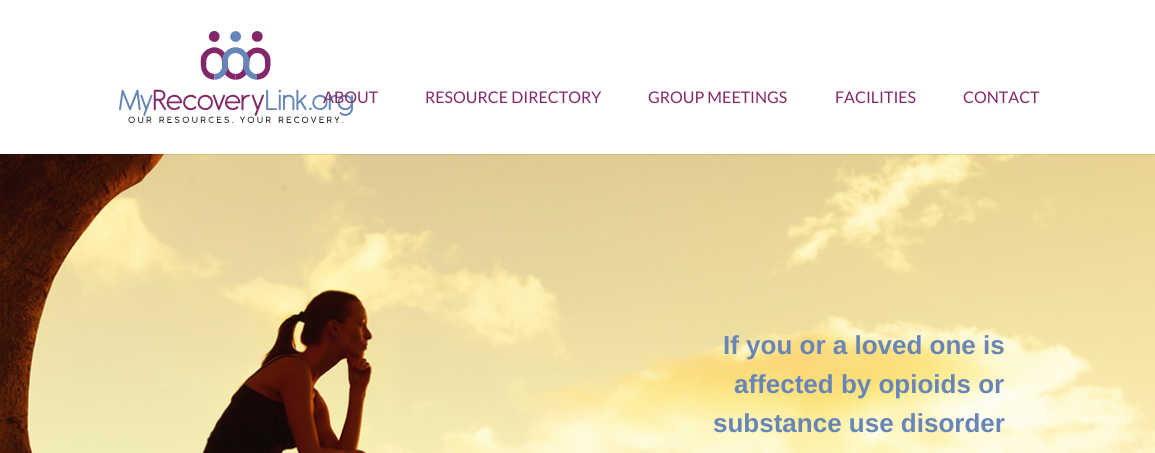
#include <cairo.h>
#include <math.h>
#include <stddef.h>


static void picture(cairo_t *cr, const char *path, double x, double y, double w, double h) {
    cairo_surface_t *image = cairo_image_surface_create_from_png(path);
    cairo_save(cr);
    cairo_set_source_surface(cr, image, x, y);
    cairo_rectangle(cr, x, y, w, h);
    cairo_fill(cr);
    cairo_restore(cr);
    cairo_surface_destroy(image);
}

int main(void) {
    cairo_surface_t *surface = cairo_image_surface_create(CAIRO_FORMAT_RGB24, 1155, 453);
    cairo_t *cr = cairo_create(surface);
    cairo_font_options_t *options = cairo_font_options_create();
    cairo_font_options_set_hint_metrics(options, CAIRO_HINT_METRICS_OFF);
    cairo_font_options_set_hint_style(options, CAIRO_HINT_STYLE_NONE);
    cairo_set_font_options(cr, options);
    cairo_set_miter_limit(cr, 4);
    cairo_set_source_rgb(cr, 1, 1, 1);
    cairo_paint(cr);
    picture(cr, "img2.png", 0, 154, 1155, 299);
    cairo_set_source_rgba(cr, 0, 0, 0, 0.1);
    cairo_rectangle(cr, 0, 154, 1155, 1);
    cairo_fill(cr);
    picture(cr, "img1.png", 119, 31, 234, 92);
    cairo_select_font_face(cr, "Lato", CAIRO_FONT_SLANT_NORMAL, CAIRO_FONT_WEIGHT_NORMAL);
    cairo_set_font_size(cr, 16);
    cairo_set_source_rgb(cr, 0.518, 0.153, 0.42);
    cairo_move_to(cr, 323, 103);
    cairo_show_text(cr, "ABOUT");
    cairo_move_to(cr, 425, 103);
    cairo_show_text(cr, "RESOURCE DIRECTORY");
    cairo_move_to(cr, 648, 103);
    cairo_show_text(cr, "GROUP MEETINGS");
    cairo_move_to(cr, 835, 103);
    cairo_show_text(cr, "FACILITIES");
    cairo_move_to(cr, 963, 103);
    cairo_show_text(cr, "CONTACT");
    cairo_select_font_face(cr, "Liberation Sans", CAIRO_FONT_SLANT_NORMAL, CAIRO_FONT_WEIGHT_BOLD);
    cairo_set_font_size(cr, 26);
    cairo_set_source_rgb(cr, 0.404, 0.522, 0.718);
    cairo_move_to(cr, 723, 354);
    cairo_show_text(cr, "If you or a loved one is");
    cairo_move_to(cr, 734, 393);
    cairo_show_text(cr, "affected by opioids or");
    cairo_move_to(cr, 713, 432);
    cairo_show_text(cr, "substance use disorder");
    cairo_surface_write_to_png(surface, "page.png");
    cairo_font_options_destroy(options);
    cairo_destroy(cr);
    cairo_surface_destroy(surface);
    return 0;
}
